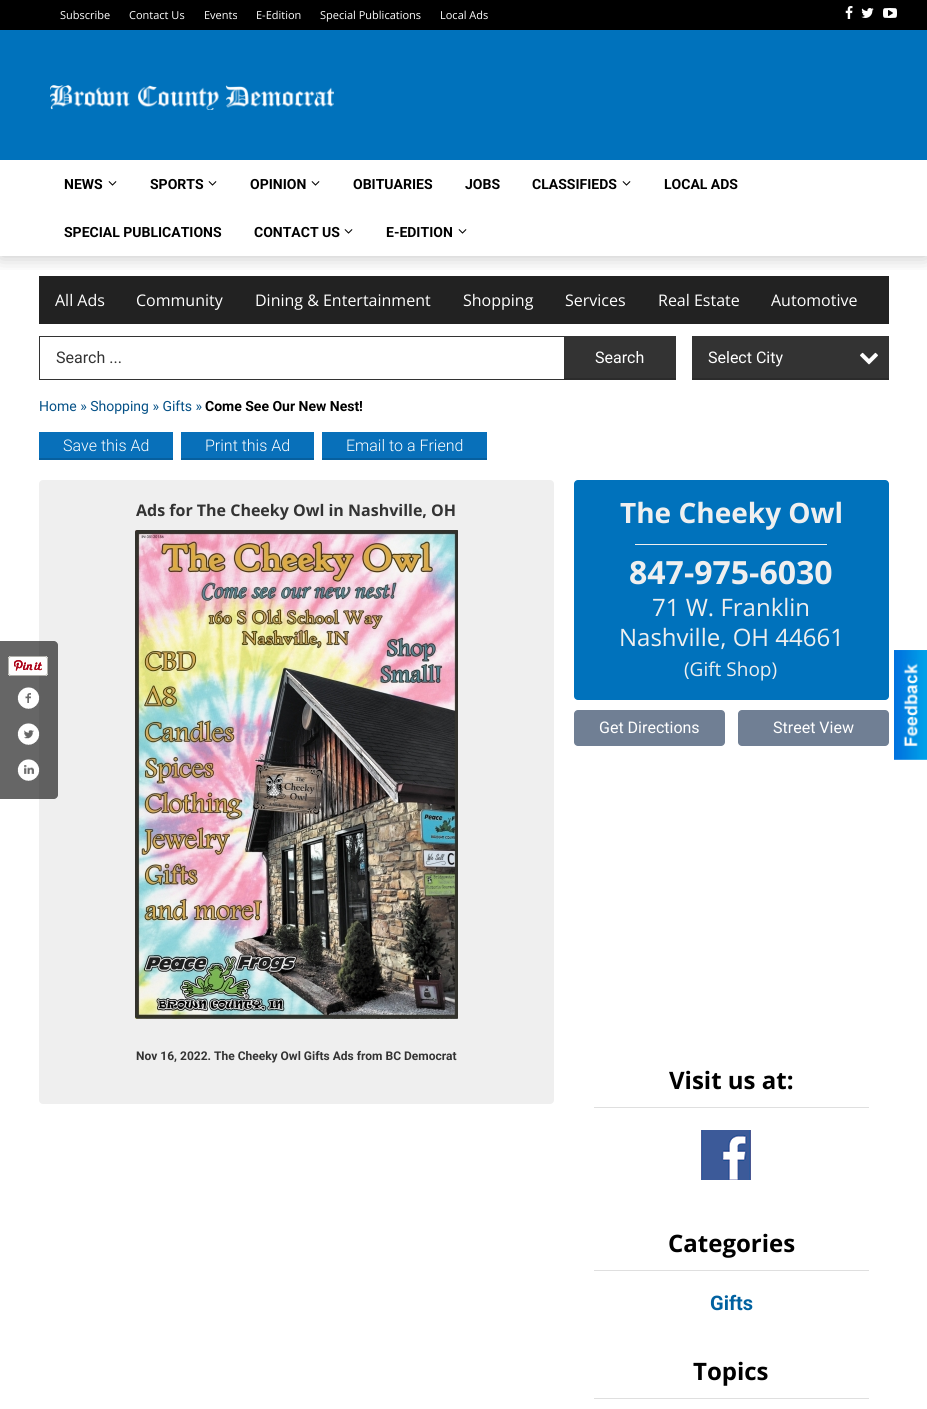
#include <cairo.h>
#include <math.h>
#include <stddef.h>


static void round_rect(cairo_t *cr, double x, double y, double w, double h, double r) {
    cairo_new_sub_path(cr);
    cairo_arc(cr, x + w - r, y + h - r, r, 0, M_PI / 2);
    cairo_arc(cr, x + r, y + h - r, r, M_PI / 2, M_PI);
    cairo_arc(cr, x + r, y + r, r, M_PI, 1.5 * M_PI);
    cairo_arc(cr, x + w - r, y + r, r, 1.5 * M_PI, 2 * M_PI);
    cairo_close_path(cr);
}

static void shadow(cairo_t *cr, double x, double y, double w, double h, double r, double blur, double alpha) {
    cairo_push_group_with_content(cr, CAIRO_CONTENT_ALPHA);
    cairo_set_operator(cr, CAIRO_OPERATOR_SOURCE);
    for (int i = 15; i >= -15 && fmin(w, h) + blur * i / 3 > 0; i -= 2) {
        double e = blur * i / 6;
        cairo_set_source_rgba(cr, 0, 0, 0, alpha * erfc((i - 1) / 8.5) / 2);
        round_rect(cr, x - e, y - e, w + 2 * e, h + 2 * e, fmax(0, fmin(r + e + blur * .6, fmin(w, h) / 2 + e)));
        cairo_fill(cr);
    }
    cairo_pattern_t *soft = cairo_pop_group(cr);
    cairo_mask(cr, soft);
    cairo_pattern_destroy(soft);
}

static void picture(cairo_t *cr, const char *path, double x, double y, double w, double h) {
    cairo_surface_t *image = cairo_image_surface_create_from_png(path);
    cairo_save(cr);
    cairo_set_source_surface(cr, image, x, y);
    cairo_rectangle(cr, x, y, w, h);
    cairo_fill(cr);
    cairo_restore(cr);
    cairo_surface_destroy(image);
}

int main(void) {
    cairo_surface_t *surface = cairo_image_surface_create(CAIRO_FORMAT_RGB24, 927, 1409);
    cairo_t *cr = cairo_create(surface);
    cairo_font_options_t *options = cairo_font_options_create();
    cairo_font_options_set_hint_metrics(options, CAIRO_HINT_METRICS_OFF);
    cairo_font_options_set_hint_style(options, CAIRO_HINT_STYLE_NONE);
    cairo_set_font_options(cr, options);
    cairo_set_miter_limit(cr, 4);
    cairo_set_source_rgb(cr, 1, 1, 1);
    cairo_paint(cr);
    cairo_set_source_rgb(cr, 0, 0, 0);
    cairo_rectangle(cr, 0, 0, 927, 30);
    cairo_fill(cr);
    cairo_select_font_face(cr, "Open Sans", CAIRO_FONT_SLANT_NORMAL, CAIRO_FONT_WEIGHT_NORMAL);
    cairo_set_font_size(cr, 11);
    cairo_set_source_rgb(cr, 1, 1, 1);
    cairo_move_to(cr, 60, 19);
    cairo_show_text(cr, "Subscribe");
    cairo_move_to(cr, 129, 19);
    cairo_show_text(cr, "Contact Us");
    cairo_move_to(cr, 204, 19);
    cairo_show_text(cr, "Events");
    cairo_move_to(cr, 256, 19);
    cairo_show_text(cr, "E-Edition");
    cairo_move_to(cr, 320, 19);
    cairo_show_text(cr, "Special Publications");
    cairo_move_to(cr, 440, 19);
    cairo_show_text(cr, "Local Ads");
    picture(cr, "img1.png", 845, 6, 8, 13);
    picture(cr, "img2.png", 861, 8, 13, 10);
    picture(cr, "img3.png", 883, 8, 14, 10);
    cairo_set_source_rgb(cr, 0.133, 0.133, 0.133);
    cairo_rectangle(cr, 39, 276, 850, 48);
    cairo_fill(cr);
    cairo_save(cr);
    cairo_rectangle(cr, 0, 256, 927, 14);
    cairo_clip(cr);
    cairo_set_source_rgb(cr, 0, 0, 0);
    shadow(cr, 0, 160, 927, 96, 0, 10, 0.25);
    cairo_restore(cr);
    cairo_set_source_rgb(cr, 0, 0.447, 0.737);
    cairo_rectangle(cr, 0, 30, 927, 130);
    cairo_fill(cr);
    picture(cr, "img4.png", 50, 85, 284, 25);
    cairo_select_font_face(cr, "Roboto", CAIRO_FONT_SLANT_NORMAL, CAIRO_FONT_WEIGHT_BOLD);
    cairo_set_font_size(cr, 14);
    cairo_set_source_rgb(cr, 0, 0, 0);
    cairo_move_to(cr, 64, 189);
    cairo_show_text(cr, "NEWS");
    picture(cr, "img5.png", 108, 181, 9, 5);
    cairo_move_to(cr, 150, 189);
    cairo_show_text(cr, "SPORTS");
    picture(cr, "img5.png", 208, 181, 9, 5);
    cairo_move_to(cr, 250, 189);
    cairo_show_text(cr, "OPINION");
    picture(cr, "img5.png", 311, 181, 9, 5);
    cairo_move_to(cr, 353, 189);
    cairo_show_text(cr, "OBITUARIES");
    cairo_move_to(cr, 465, 189);
    cairo_show_text(cr, "JOBS");
    cairo_move_to(cr, 532, 189);
    cairo_show_text(cr, "CLASSIFIEDS");
    picture(cr, "img5.png", 622, 181, 9, 5);
    cairo_move_to(cr, 664, 189);
    cairo_show_text(cr, "LOCAL ADS");
    cairo_move_to(cr, 64, 237);
    cairo_show_text(cr, "SPECIAL PUBLICATIONS");
    cairo_move_to(cr, 254, 237);
    cairo_show_text(cr, "CONTACT US");
    picture(cr, "img5.png", 344, 229, 9, 5);
    cairo_move_to(cr, 386, 237);
    cairo_show_text(cr, "E-EDITION");
    picture(cr, "img5.png", 458, 229, 9, 5);
    cairo_set_source_rgb(cr, 0.937, 0.937, 0.937);
    round_rect(cr, 39, 480, 515, 624, 4);
    cairo_fill(cr);
    cairo_set_source_rgba(cr, 0, 0, 0, 0.6);
    cairo_new_path(cr);
    cairo_move_to(cr, 0, 641);
    cairo_line_to(cr, 54, 641);
    cairo_curve_to(cr, 56, 641, 58, 643, 58, 645);
    cairo_line_to(cr, 58, 795);
    cairo_curve_to(cr, 58, 797, 56, 799, 54, 799);
    cairo_line_to(cr, 0, 799);
    cairo_close_path(cr);
    cairo_fill(cr);
    picture(cr, "img6.png", 8, 656, 40, 20);
    picture(cr, "img7.png", 17, 687, 23, 22);
    picture(cr, "img8.png", 17, 723, 23, 22);
    picture(cr, "img9.png", 17, 759, 23, 22);
    cairo_select_font_face(cr, "Open Sans", CAIRO_FONT_SLANT_NORMAL, CAIRO_FONT_WEIGHT_NORMAL);
    cairo_set_font_size(cr, 16);
    cairo_set_source_rgb(cr, 1, 1, 1);
    cairo_move_to(cr, 55, 306);
    cairo_show_text(cr, "All Ads");
    cairo_move_to(cr, 136, 306);
    cairo_show_text(cr, "Community");
    cairo_move_to(cr, 255, 306);
    cairo_show_text(cr, "Dining & Entertainment");
    cairo_move_to(cr, 463, 306);
    cairo_show_text(cr, "Shopping");
    cairo_move_to(cr, 565, 306);
    cairo_show_text(cr, "Services");
    cairo_move_to(cr, 658, 306);
    cairo_show_text(cr, "Real Estate");
    cairo_move_to(cr, 771, 306);
    cairo_show_text(cr, "Automotive");
    cairo_rectangle(cr, 39.5, 336.5, 636, 43);
    cairo_set_source_rgb(cr, 0.2, 0.2, 0.2);
    cairo_set_line_width(cr, 1);
    cairo_stroke(cr);
    cairo_select_font_face(cr, "Roboto", CAIRO_FONT_SLANT_NORMAL, CAIRO_FONT_WEIGHT_NORMAL);
    cairo_move_to(cr, 56, 363);
    cairo_show_text(cr, "Search ...");
    cairo_rectangle(cr, 564, 337, 111, 41);
    cairo_fill(cr);
    cairo_set_source_rgb(cr, 0.169, 0.169, 0.169);
    cairo_rectangle(cr, 564, 378, 112, 2);
    cairo_fill(cr);
    cairo_set_source_rgb(cr, 1, 1, 1);
    cairo_move_to(cr, 595, 363);
    cairo_show_text(cr, "Search");
    cairo_set_source_rgb(cr, 0.2, 0.2, 0.2);
    cairo_rectangle(cr, 692, 336, 197, 42);
    cairo_fill(cr);
    cairo_set_source_rgb(cr, 0.169, 0.169, 0.169);
    cairo_rectangle(cr, 692, 378, 197, 2);
    cairo_fill(cr);
    cairo_set_source_rgb(cr, 1, 1, 1);
    cairo_move_to(cr, 708, 363);
    cairo_show_text(cr, "Select City");
    picture(cr, "img10.png", 860, 352, 18, 13);
    cairo_set_font_size(cr, 14);
    cairo_set_source_rgb(cr, 0.02, 0.318, 0.529);
    cairo_move_to(cr, 39, 411);
    cairo_show_text(cr, "Home » Shopping » Gifts »");
    cairo_select_font_face(cr, "Roboto", CAIRO_FONT_SLANT_NORMAL, CAIRO_FONT_WEIGHT_BOLD);
    cairo_set_source_rgb(cr, 0, 0, 0);
    cairo_move_to(cr, 205, 411);
    cairo_show_text(cr, "Come See Our New Nest!");
    cairo_set_source_rgb(cr, 0.035, 0.439, 0.729);
    cairo_rectangle(cr, 39, 432, 134, 26);
    cairo_fill(cr);
    cairo_set_source_rgb(cr, 0.031, 0.373, 0.62);
    cairo_rectangle(cr, 39, 458, 134, 2);
    cairo_fill(cr);
    cairo_select_font_face(cr, "Roboto Light", CAIRO_FONT_SLANT_NORMAL, CAIRO_FONT_WEIGHT_NORMAL);
    cairo_set_font_size(cr, 16);
    cairo_set_source_rgb(cr, 1, 1, 1);
    cairo_move_to(cr, 63, 451);
    cairo_show_text(cr, "Save this Ad");
    cairo_set_source_rgb(cr, 0.035, 0.439, 0.729);
    cairo_rectangle(cr, 181, 432, 133, 26);
    cairo_fill(cr);
    cairo_set_source_rgb(cr, 0.031, 0.373, 0.62);
    cairo_rectangle(cr, 181, 458, 133, 2);
    cairo_fill(cr);
    cairo_set_source_rgb(cr, 1, 1, 1);
    cairo_move_to(cr, 205, 451);
    cairo_show_text(cr, "Print this Ad");
    cairo_set_source_rgb(cr, 0.035, 0.439, 0.729);
    cairo_rectangle(cr, 322, 432, 165, 26);
    cairo_fill(cr);
    cairo_set_source_rgb(cr, 0.031, 0.373, 0.62);
    cairo_rectangle(cr, 322, 458, 165, 2);
    cairo_fill(cr);
    cairo_set_source_rgb(cr, 1, 1, 1);
    cairo_move_to(cr, 346, 451);
    cairo_show_text(cr, "Email to a Friend");
    cairo_select_font_face(cr, "Open Sans", CAIRO_FONT_SLANT_NORMAL, CAIRO_FONT_WEIGHT_BOLD);
    cairo_set_source_rgb(cr, 0.2, 0.2, 0.2);
    cairo_move_to(cr, 136, 516);
    cairo_show_text(cr, "Ads for The Cheeky Owl in Nashville, OH");
    picture(cr, "img11.png", 135, 530, 323, 489);
    cairo_select_font_face(cr, "Roboto", CAIRO_FONT_SLANT_NORMAL, CAIRO_FONT_WEIGHT_BOLD);
    cairo_set_font_size(cr, 12);
    cairo_move_to(cr, 136, 1060);
    cairo_show_text(cr, "Nov 16, 2022. The Cheeky Owl Gifts Ads from BC Democrat");
    cairo_set_source_rgb(cr, 0, 0.447, 0.737);
    round_rect(cr, 574, 480, 315, 220, 4);
    cairo_fill(cr);
    cairo_select_font_face(cr, "Open Sans", CAIRO_FONT_SLANT_NORMAL, CAIRO_FONT_WEIGHT_BOLD);
    cairo_set_font_size(cr, 28);
    cairo_set_source_rgb(cr, 0.937, 0.937, 0.937);
    cairo_move_to(cr, 620, 523);
    cairo_show_text(cr, "The Cheeky Owl");
    cairo_rectangle(cr, 635, 544, 192, 1);
    cairo_fill(cr);
    cairo_set_font_size(cr, 32);
    cairo_move_to(cr, 629, 584);
    cairo_show_text(cr, "847-975-6030");
    cairo_select_font_face(cr, "Open Sans", CAIRO_FONT_SLANT_NORMAL, CAIRO_FONT_WEIGHT_NORMAL);
    cairo_set_font_size(cr, 24);
    cairo_move_to(cr, 652, 616);
    cairo_show_text(cr, "71 W. Franklin");
    cairo_move_to(cr, 619, 646);
    cairo_show_text(cr, "Nashville, OH 44661");
    cairo_set_font_size(cr, 19);
    cairo_move_to(cr, 684, 676);
    cairo_show_text(cr, "(Gift Shop)");
    cairo_set_source_rgb(cr, 0.439, 0.498, 0.58);
    round_rect(cr, 574, 710, 151, 36, 4);
    cairo_fill(cr);
    cairo_select_font_face(cr, "Roboto", CAIRO_FONT_SLANT_NORMAL, CAIRO_FONT_WEIGHT_NORMAL);
    cairo_set_font_size(cr, 16);
    cairo_set_source_rgb(cr, 1, 1, 1);
    cairo_move_to(cr, 599, 733);
    cairo_show_text(cr, "Get Directions");
    cairo_set_source_rgb(cr, 0.439, 0.498, 0.58);
    round_rect(cr, 738, 710, 151, 36, 4);
    cairo_fill(cr);
    cairo_set_source_rgb(cr, 1, 1, 1);
    cairo_move_to(cr, 773, 733);
    cairo_show_text(cr, "Street View");
    cairo_set_source_rgb(cr, 0.875, 0.875, 0.875);
    cairo_rectangle(cr, 594, 1107, 275, 1);
    cairo_fill(cr);
    cairo_select_font_face(cr, "Open Sans", CAIRO_FONT_SLANT_NORMAL, CAIRO_FONT_WEIGHT_BOLD);
    cairo_set_font_size(cr, 24);
    cairo_set_source_rgb(cr, 0, 0, 0);
    cairo_move_to(cr, 669, 1089);
    cairo_show_text(cr, "Visit us at:");
    picture(cr, "img12.png", 701, 1130, 50, 50);
    cairo_set_source_rgb(cr, 0.875, 0.875, 0.875);
    cairo_rectangle(cr, 594, 1270, 275, 1);
    cairo_fill(cr);
    cairo_set_source_rgb(cr, 0, 0, 0);
    cairo_move_to(cr, 668, 1252);
    cairo_show_text(cr, "Categories");
    cairo_select_font_face(cr, "Roboto", CAIRO_FONT_SLANT_NORMAL, CAIRO_FONT_WEIGHT_BOLD);
    cairo_set_font_size(cr, 20);
    cairo_set_source_rgb(cr, 0, 0.38, 0.627);
    cairo_move_to(cr, 710, 1310);
    cairo_show_text(cr, "Gifts");
    cairo_set_source_rgb(cr, 0.875, 0.875, 0.875);
    cairo_rectangle(cr, 594, 1398, 275, 1);
    cairo_fill(cr);
    cairo_select_font_face(cr, "Open Sans", CAIRO_FONT_SLANT_NORMAL, CAIRO_FONT_WEIGHT_BOLD);
    cairo_set_font_size(cr, 24);
    cairo_set_source_rgb(cr, 0, 0, 0);
    cairo_move_to(cr, 693, 1380);
    cairo_show_text(cr, "Topics");
    picture(cr, "img13.png", 894, 650, 33, 110);
    cairo_surface_write_to_png(surface, "page.png");
    cairo_font_options_destroy(options);
    cairo_destroy(cr);
    cairo_surface_destroy(surface);
    return 0;
}
